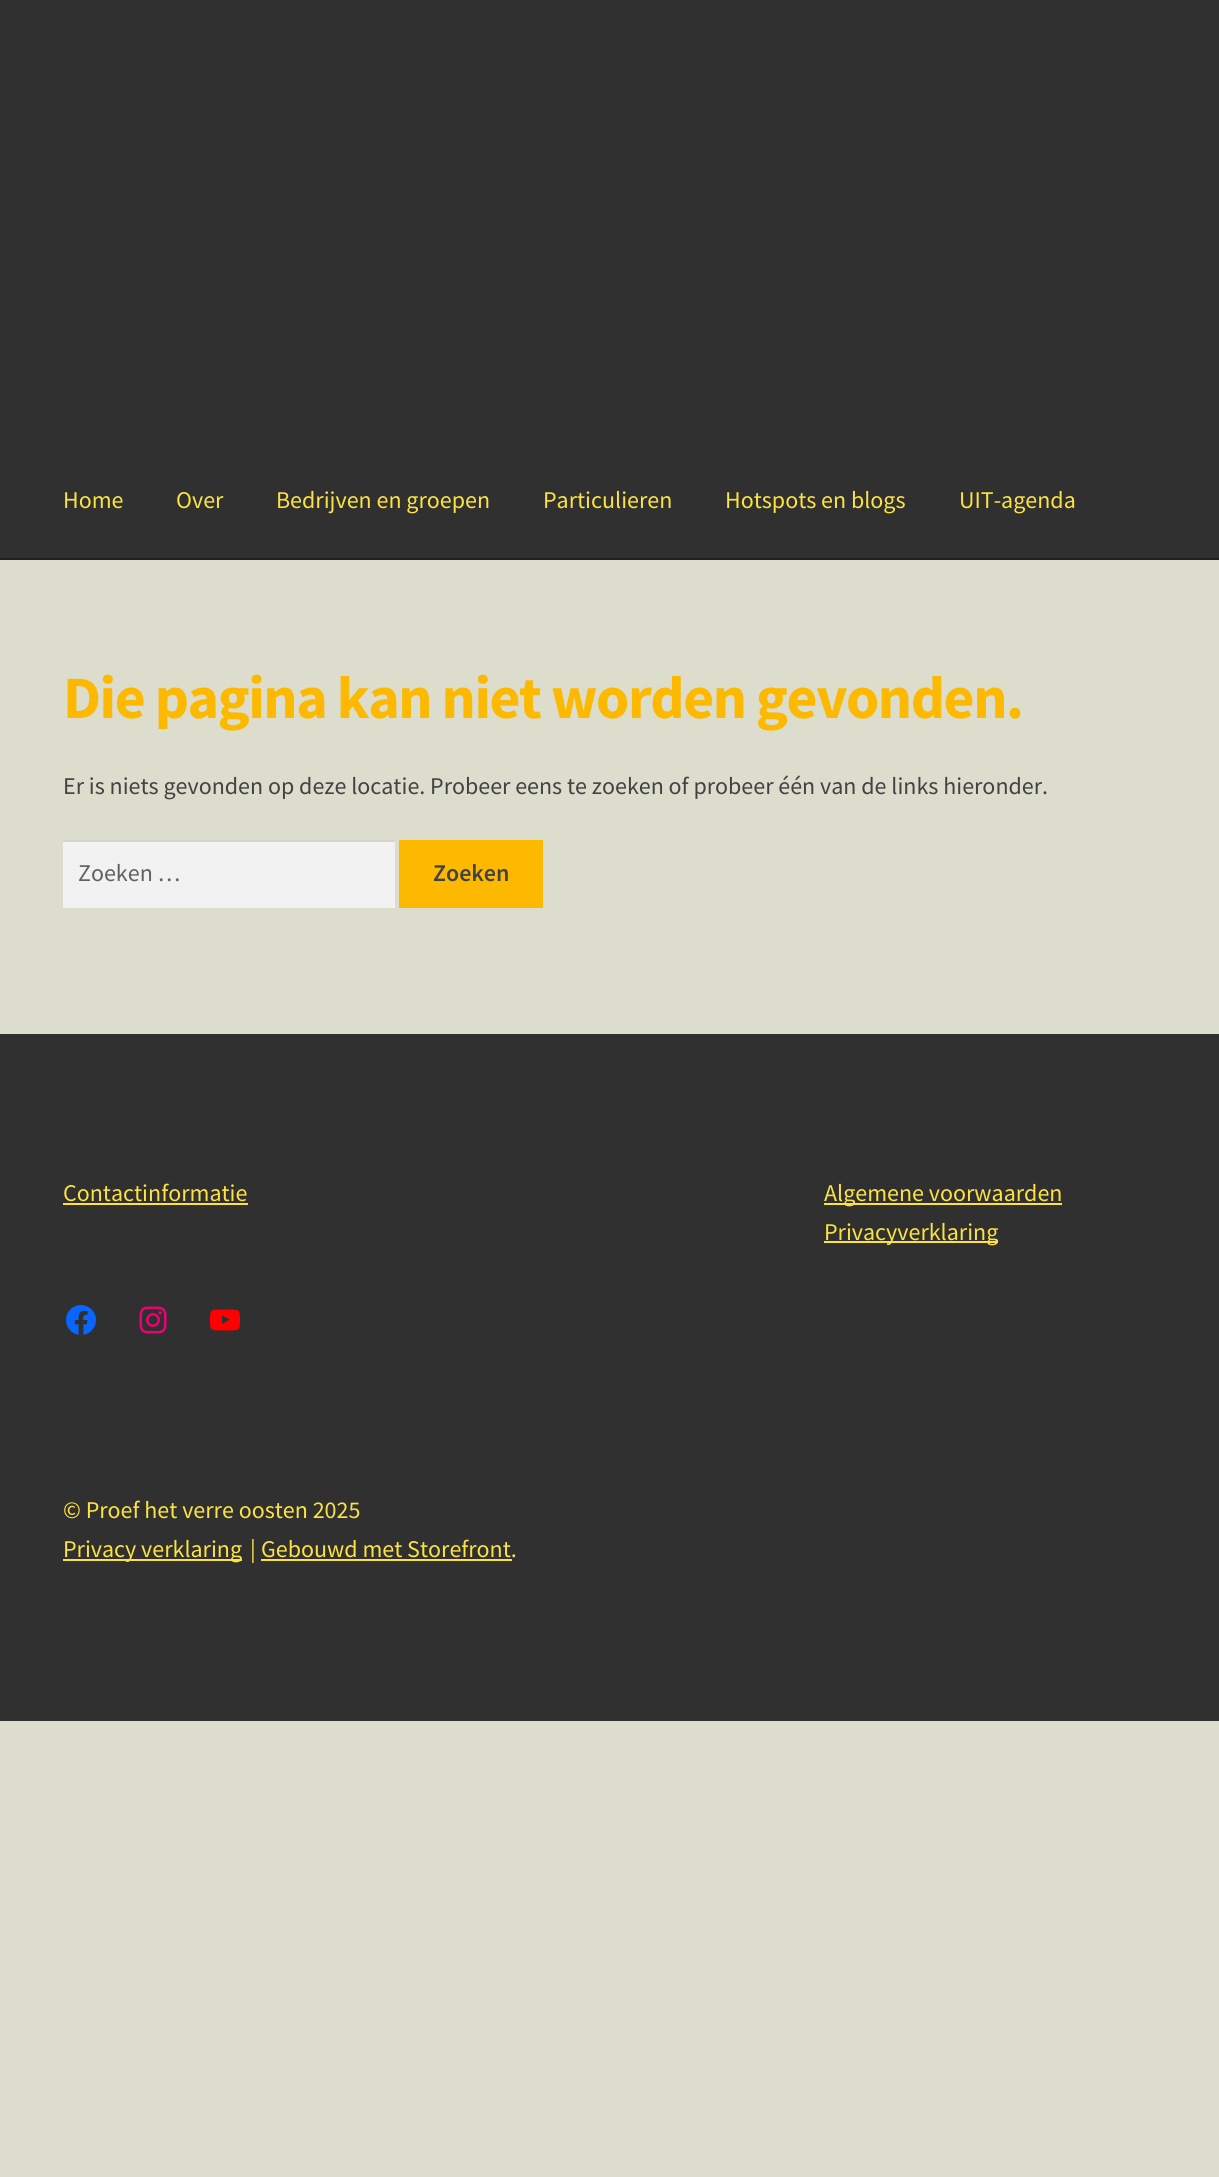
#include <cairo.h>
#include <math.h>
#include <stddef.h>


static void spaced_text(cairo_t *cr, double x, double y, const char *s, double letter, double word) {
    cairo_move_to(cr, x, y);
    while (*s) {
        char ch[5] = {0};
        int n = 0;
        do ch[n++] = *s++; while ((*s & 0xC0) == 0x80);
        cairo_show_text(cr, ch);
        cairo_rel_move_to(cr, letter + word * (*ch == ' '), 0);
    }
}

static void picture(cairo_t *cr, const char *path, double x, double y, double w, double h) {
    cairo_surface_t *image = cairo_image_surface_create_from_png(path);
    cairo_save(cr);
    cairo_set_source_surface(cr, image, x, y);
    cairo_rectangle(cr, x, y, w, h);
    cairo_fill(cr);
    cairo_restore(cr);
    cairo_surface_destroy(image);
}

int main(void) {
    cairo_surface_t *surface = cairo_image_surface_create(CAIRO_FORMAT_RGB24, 1219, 2177);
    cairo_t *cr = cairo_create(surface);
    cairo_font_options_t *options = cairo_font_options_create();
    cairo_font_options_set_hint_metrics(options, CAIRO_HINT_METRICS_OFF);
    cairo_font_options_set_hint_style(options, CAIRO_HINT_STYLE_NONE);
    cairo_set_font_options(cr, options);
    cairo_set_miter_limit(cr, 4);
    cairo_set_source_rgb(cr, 0.867, 0.867, 0.808);
    cairo_paint(cr);
    cairo_set_source_rgb(cr, 0.188, 0.188, 0.188);
    cairo_rectangle(cr, 0, 0, 1219, 558);
    cairo_fill(cr);
    cairo_set_source_rgb(cr, 0.129, 0.129, 0.129);
    cairo_rectangle(cr, 0, 558, 1219, 2);
    cairo_fill(cr);
    cairo_select_font_face(cr, "Source Sans Pro", CAIRO_FONT_SLANT_NORMAL, CAIRO_FONT_WEIGHT_NORMAL);
    cairo_set_font_size(cr, 24);
    cairo_set_source_rgb(cr, 0.988, 0.89, 0.255);
    cairo_move_to(cr, 63, 508);
    cairo_show_text(cr, "Home");
    cairo_move_to(cr, 176, 508);
    cairo_show_text(cr, "Over");
    cairo_move_to(cr, 276, 508);
    cairo_show_text(cr, "Bedrijven en groepen");
    cairo_move_to(cr, 543, 508);
    cairo_show_text(cr, "Particulieren");
    cairo_move_to(cr, 725, 508);
    cairo_show_text(cr, "Hotspots en blogs");
    cairo_move_to(cr, 959, 508);
    cairo_show_text(cr, "UIT-agenda");
    cairo_select_font_face(cr, "Source Sans Pro", CAIRO_FONT_SLANT_NORMAL, CAIRO_FONT_WEIGHT_BOLD);
    cairo_set_font_size(cr, 60);
    cairo_set_source_rgb(cr, 0.988, 0.725, 0);
    spaced_text(cr, 63, 718, "Die pagina kan niet worden gevonden.", -1.5, 0);
    cairo_select_font_face(cr, "Source Sans Pro", CAIRO_FONT_SLANT_NORMAL, CAIRO_FONT_WEIGHT_NORMAL);
    cairo_set_font_size(cr, 24);
    cairo_set_source_rgb(cr, 0.259, 0.259, 0.259);
    cairo_move_to(cr, 63, 794);
    cairo_show_text(cr, "Er is niets gevonden op deze locatie. Probeer eens te zoeken of probeer één van de links hieronder.");
    cairo_set_source_rgb(cr, 0.949, 0.949, 0.949);
    cairo_rectangle(cr, 63, 842, 332, 66);
    cairo_fill(cr);
    cairo_set_source_rgb(cr, 0.831, 0.831, 0.831);
    cairo_rectangle(cr, 63, 840, 332, 2);
    cairo_fill(cr);
    cairo_set_source_rgb(cr, 0.38, 0.38, 0.38);
    cairo_move_to(cr, 78, 881);
    cairo_show_text(cr, "Zoeken …");
    cairo_set_source_rgb(cr, 0.988, 0.725, 0);
    cairo_rectangle(cr, 399, 840, 144, 68);
    cairo_fill(cr);
    cairo_select_font_face(cr, "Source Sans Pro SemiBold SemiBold", CAIRO_FONT_SLANT_NORMAL, CAIRO_FONT_WEIGHT_NORMAL);
    cairo_set_source_rgb(cr, 0.259, 0.259, 0.259);
    cairo_move_to(cr, 433, 881);
    cairo_show_text(cr, "Zoeken");
    cairo_set_source_rgb(cr, 0.188, 0.188, 0.188);
    cairo_rectangle(cr, 0, 1034, 1219, 687);
    cairo_fill(cr);
    cairo_select_font_face(cr, "Source Sans Pro", CAIRO_FONT_SLANT_NORMAL, CAIRO_FONT_WEIGHT_NORMAL);
    cairo_set_source_rgb(cr, 0.988, 0.89, 0.255);
    cairo_move_to(cr, 63, 1201);
    cairo_show_text(cr, "Contactinformatie");
    cairo_rectangle(cr, 63, 1203, 185, 2);
    cairo_fill(cr);
    picture(cr, "img1.png", 66, 1305, 30, 30);
    picture(cr, "img2.png", 139, 1306, 28, 28);
    picture(cr, "img3.png", 210, 1309, 30, 22);
    cairo_rectangle(cr, 824, 1203, 238, 2);
    cairo_fill(cr);
    cairo_move_to(cr, 824, 1201);
    cairo_show_text(cr, "Algemene voorwaarden");
    cairo_rectangle(cr, 824, 1241, 174, 2);
    cairo_fill(cr);
    cairo_move_to(cr, 824, 1240);
    cairo_show_text(cr, "Privacyverklaring");
    cairo_move_to(cr, 63, 1518);
    cairo_show_text(cr, "© Proef het verre oosten 2025");
    cairo_rectangle(cr, 63, 1559, 179, 2);
    cairo_fill(cr);
    cairo_move_to(cr, 63, 1557);
    cairo_show_text(cr, "Privacy verklaring");
    cairo_move_to(cr, 250, 1557);
    cairo_show_text(cr, "|");
    cairo_move_to(cr, 261, 1557);
    cairo_show_text(cr, "Gebouwd met Storefront.");
    cairo_rectangle(cr, 261, 1559, 251, 2);
    cairo_fill(cr);
    cairo_surface_write_to_png(surface, "page.png");
    cairo_font_options_destroy(options);
    cairo_destroy(cr);
    cairo_surface_destroy(surface);
    return 0;
}
